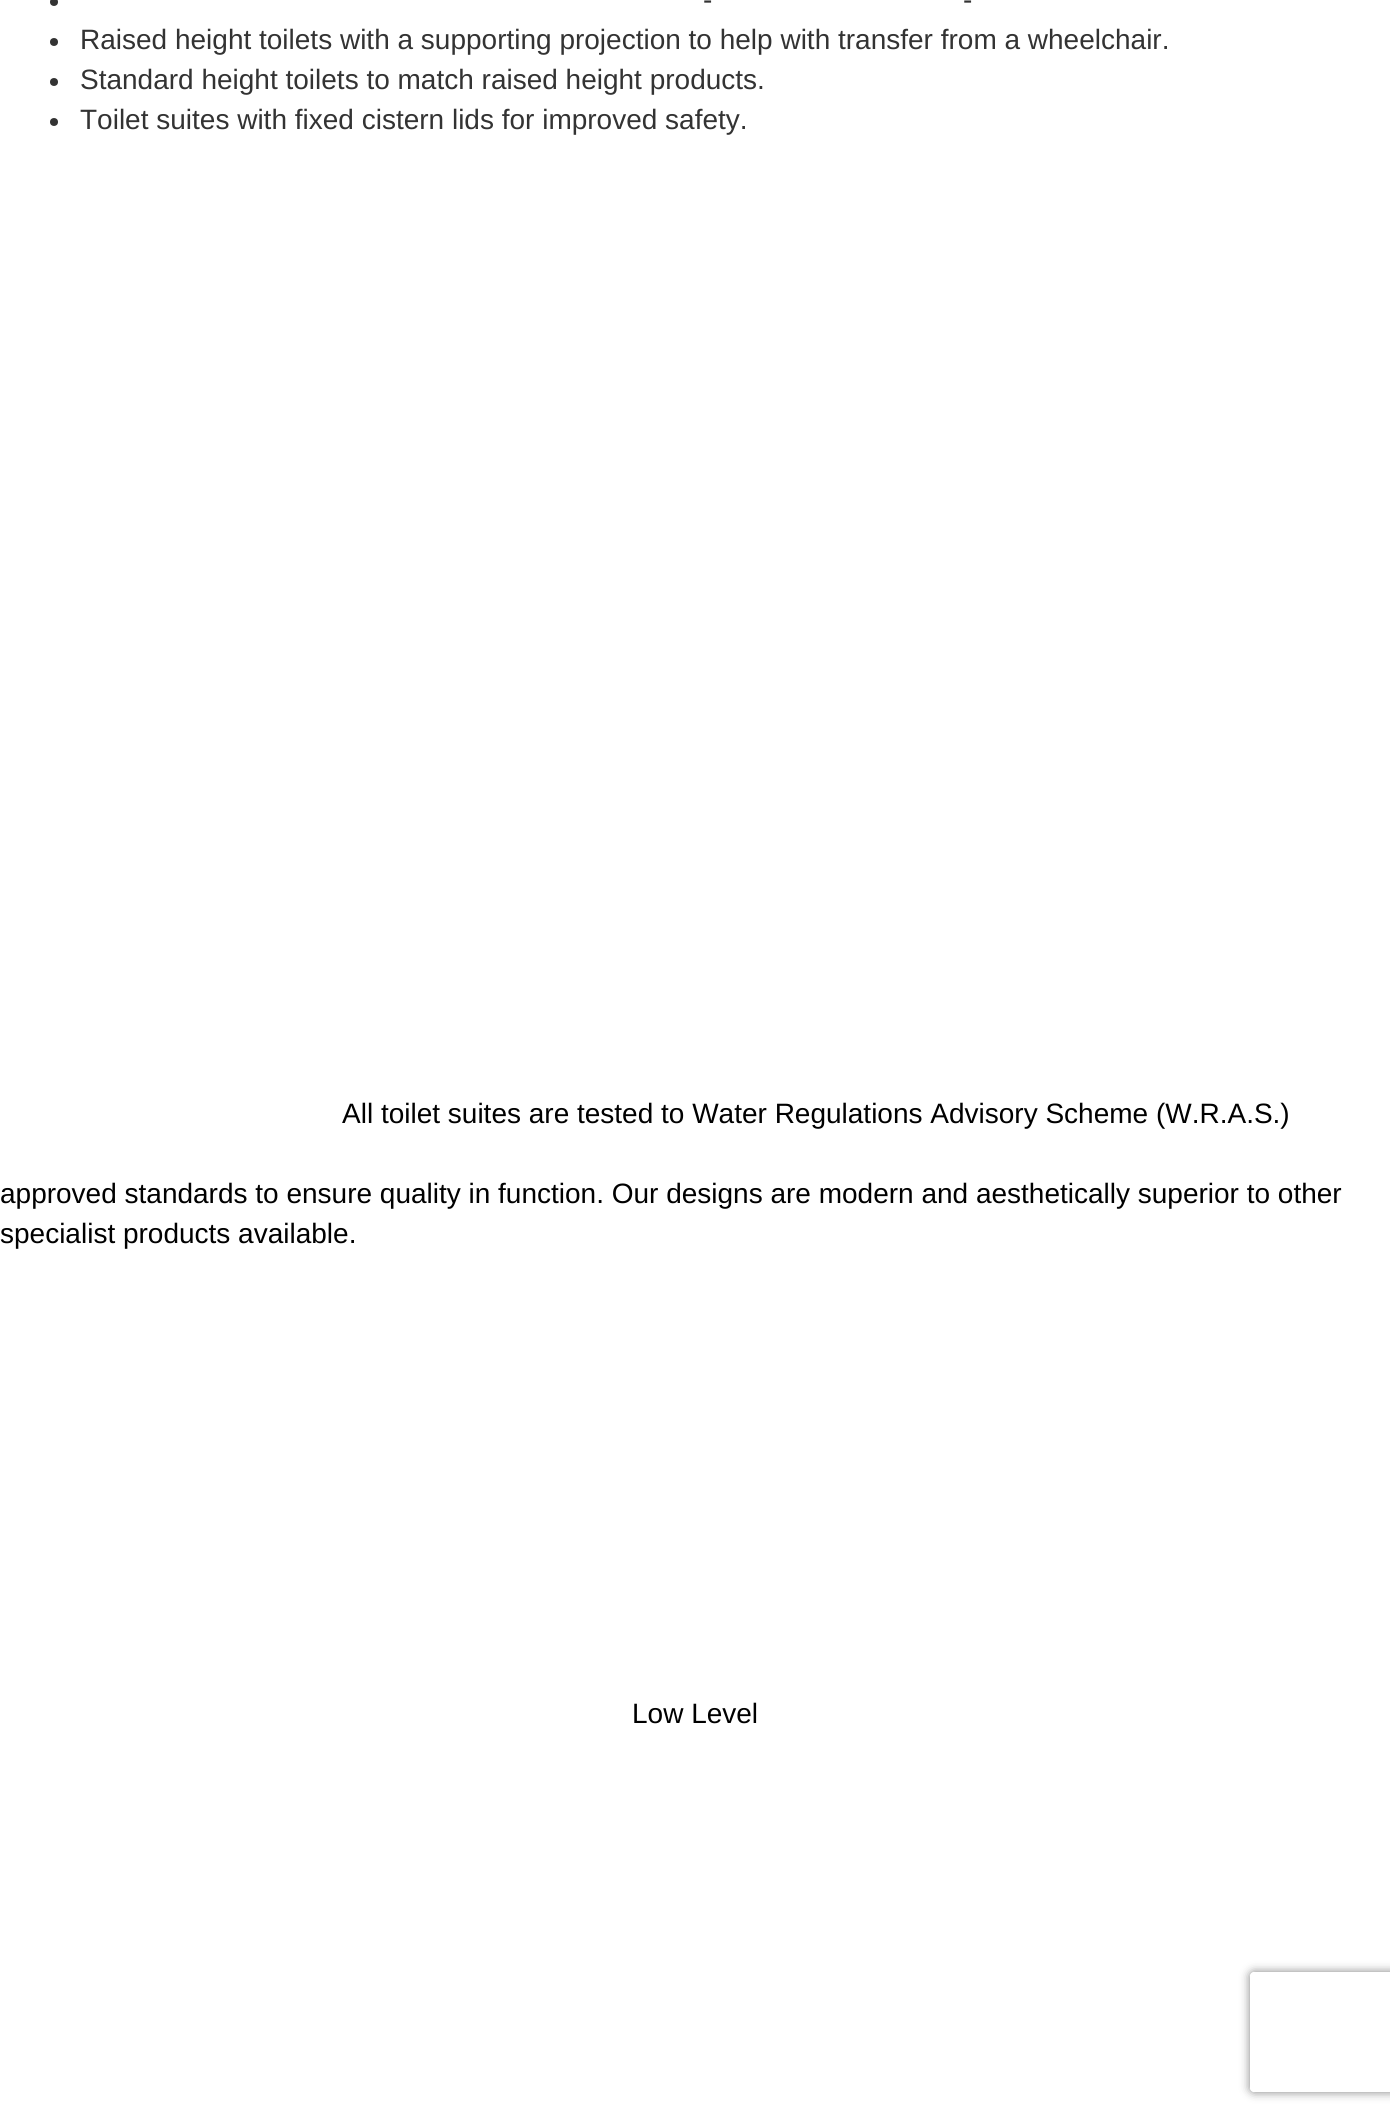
#include <cairo.h>
#include <math.h>
#include <stddef.h>


static void round_rect(cairo_t *cr, double x, double y, double w, double h, double r) {
    cairo_new_sub_path(cr);
    cairo_arc(cr, x + w - r, y + h - r, r, 0, M_PI / 2);
    cairo_arc(cr, x + r, y + h - r, r, M_PI / 2, M_PI);
    cairo_arc(cr, x + r, y + r, r, M_PI, 1.5 * M_PI);
    cairo_arc(cr, x + w - r, y + r, r, 1.5 * M_PI, 2 * M_PI);
    cairo_close_path(cr);
}

static void shadow(cairo_t *cr, double x, double y, double w, double h, double r, double blur, double alpha) {
    cairo_push_group_with_content(cr, CAIRO_CONTENT_ALPHA);
    cairo_set_operator(cr, CAIRO_OPERATOR_SOURCE);
    for (int i = 15; i >= -15 && fmin(w, h) + blur * i / 3 > 0; i -= 2) {
        double e = blur * i / 6;
        cairo_set_source_rgba(cr, 0, 0, 0, alpha * erfc((i - 1) / 8.5) / 2);
        round_rect(cr, x - e, y - e, w + 2 * e, h + 2 * e, fmax(0, fmin(r + e + blur * .6, fmin(w, h) / 2 + e)));
        cairo_fill(cr);
    }
    cairo_pattern_t *soft = cairo_pop_group(cr);
    cairo_mask(cr, soft);
    cairo_pattern_destroy(soft);
}

int main(void) {
    cairo_surface_t *surface = cairo_image_surface_create(CAIRO_FORMAT_RGB24, 1390, 2120);
    cairo_t *cr = cairo_create(surface);
    cairo_font_options_t *options = cairo_font_options_create();
    cairo_font_options_set_hint_metrics(options, CAIRO_HINT_METRICS_OFF);
    cairo_font_options_set_hint_style(options, CAIRO_HINT_STYLE_NONE);
    cairo_set_font_options(cr, options);
    cairo_set_miter_limit(cr, 4);
    cairo_set_source_rgb(cr, 1, 1, 1);
    cairo_paint(cr);
    cairo_set_source_rgb(cr, 0.2, 0.2, 0.2);
    cairo_arc(cr, 54, 2, 4, 0, 2 * M_PI);
    cairo_fill(cr);
    cairo_select_font_face(cr, "Liberation Sans", CAIRO_FONT_SLANT_NORMAL, CAIRO_FONT_WEIGHT_NORMAL);
    cairo_set_font_size(cr, 28);
    cairo_move_to(cr, 703, 9);
    cairo_show_text(cr, "-");
    cairo_move_to(cr, 963, 9);
    cairo_show_text(cr, "-");
    cairo_new_path(cr);
    cairo_arc(cr, 54, 42, 4, 0, 2 * M_PI);
    cairo_fill(cr);
    cairo_move_to(cr, 80, 49);
    cairo_show_text(cr, "Raised height toilets with a supporting projection to help with transfer from a wheelchair.");
    cairo_new_path(cr);
    cairo_arc(cr, 54, 82, 4, 0, 2 * M_PI);
    cairo_fill(cr);
    cairo_move_to(cr, 80, 89);
    cairo_show_text(cr, "Standard height toilets to match raised height products.");
    cairo_new_path(cr);
    cairo_arc(cr, 54, 122, 4, 0, 2 * M_PI);
    cairo_fill(cr);
    cairo_move_to(cr, 80, 129);
    cairo_show_text(cr, "Toilet suites with fixed cistern lids for improved safety.");
    cairo_set_source_rgb(cr, 0, 0, 0);
    cairo_move_to(cr, 342, 1123);
    cairo_show_text(cr, "All toilet suites are tested to Water Regulations Advisory Scheme (W.R.A.S.)");
    cairo_move_to(cr, 0, 1203);
    cairo_show_text(cr, "approved standards to ensure quality in function. Our designs are modern and aesthetically superior to other");
    cairo_move_to(cr, 0, 1243);
    cairo_show_text(cr, "specialist products available.");
    cairo_move_to(cr, 632, 1723);
    cairo_show_text(cr, "Low Level");
    cairo_save(cr);
    cairo_set_fill_rule(cr, CAIRO_FILL_RULE_EVEN_ODD);
    cairo_new_path(cr);
    cairo_move_to(cr, 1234, 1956);
    cairo_line_to(cr, 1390, 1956);
    cairo_line_to(cr, 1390, 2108);
    cairo_line_to(cr, 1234, 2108);
    cairo_close_path(cr);
    cairo_move_to(cr, 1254, 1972);
    cairo_line_to(cr, 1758, 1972);
    cairo_curve_to(cr, 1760, 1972, 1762, 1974, 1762, 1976);
    cairo_line_to(cr, 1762, 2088);
    cairo_curve_to(cr, 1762, 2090, 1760, 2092, 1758, 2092);
    cairo_line_to(cr, 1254, 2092);
    cairo_curve_to(cr, 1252, 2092, 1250, 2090, 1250, 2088);
    cairo_line_to(cr, 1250, 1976);
    cairo_curve_to(cr, 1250, 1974, 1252, 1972, 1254, 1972);
    cairo_close_path(cr);
    cairo_clip(cr);
    cairo_set_source_rgb(cr, 0.502, 0.502, 0.502);
    shadow(cr, 1250, 1972, 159, 120, 4, 5, 1);
    cairo_restore(cr);
    cairo_surface_write_to_png(surface, "page.png");
    cairo_font_options_destroy(options);
    cairo_destroy(cr);
    cairo_surface_destroy(surface);
    return 0;
}
